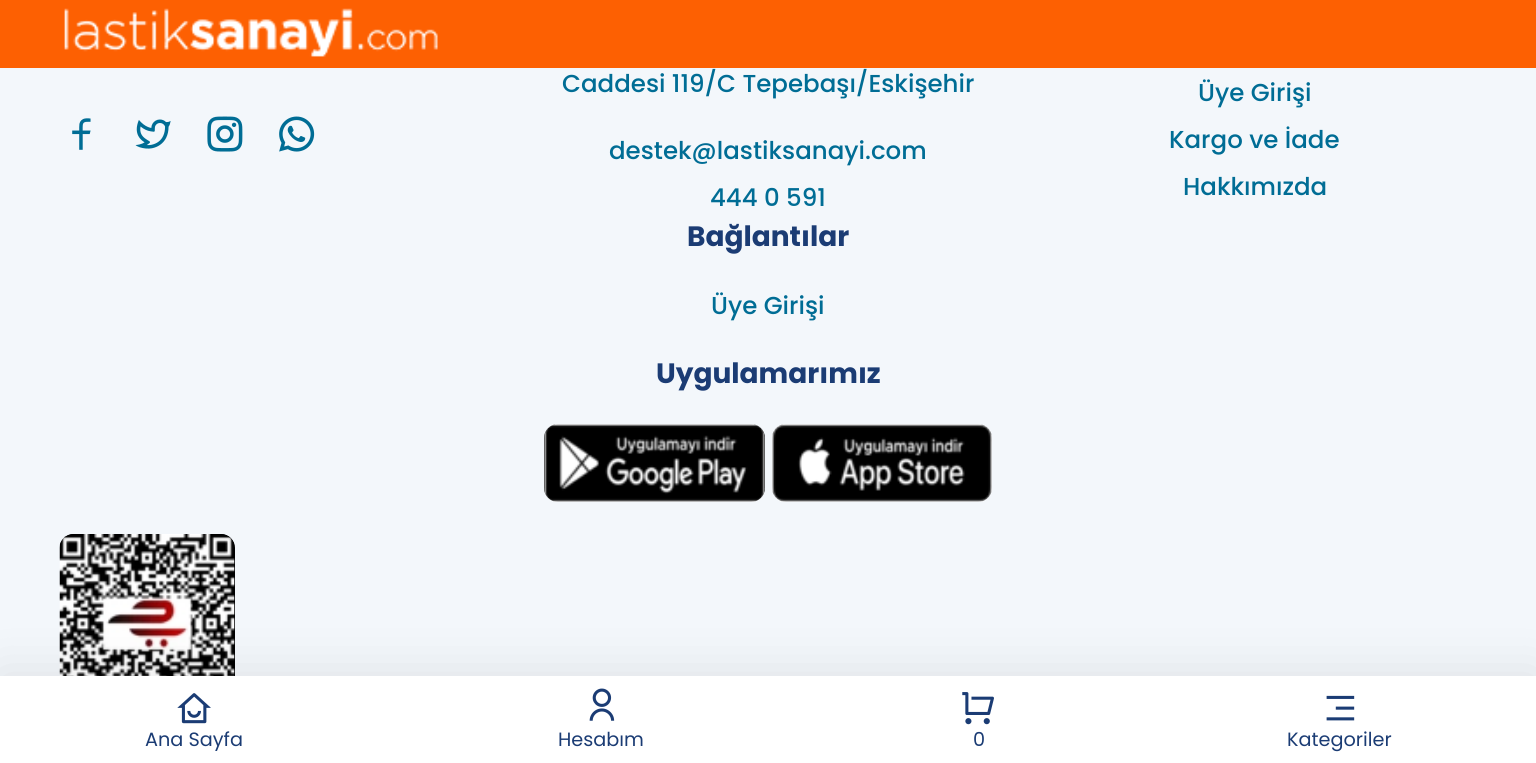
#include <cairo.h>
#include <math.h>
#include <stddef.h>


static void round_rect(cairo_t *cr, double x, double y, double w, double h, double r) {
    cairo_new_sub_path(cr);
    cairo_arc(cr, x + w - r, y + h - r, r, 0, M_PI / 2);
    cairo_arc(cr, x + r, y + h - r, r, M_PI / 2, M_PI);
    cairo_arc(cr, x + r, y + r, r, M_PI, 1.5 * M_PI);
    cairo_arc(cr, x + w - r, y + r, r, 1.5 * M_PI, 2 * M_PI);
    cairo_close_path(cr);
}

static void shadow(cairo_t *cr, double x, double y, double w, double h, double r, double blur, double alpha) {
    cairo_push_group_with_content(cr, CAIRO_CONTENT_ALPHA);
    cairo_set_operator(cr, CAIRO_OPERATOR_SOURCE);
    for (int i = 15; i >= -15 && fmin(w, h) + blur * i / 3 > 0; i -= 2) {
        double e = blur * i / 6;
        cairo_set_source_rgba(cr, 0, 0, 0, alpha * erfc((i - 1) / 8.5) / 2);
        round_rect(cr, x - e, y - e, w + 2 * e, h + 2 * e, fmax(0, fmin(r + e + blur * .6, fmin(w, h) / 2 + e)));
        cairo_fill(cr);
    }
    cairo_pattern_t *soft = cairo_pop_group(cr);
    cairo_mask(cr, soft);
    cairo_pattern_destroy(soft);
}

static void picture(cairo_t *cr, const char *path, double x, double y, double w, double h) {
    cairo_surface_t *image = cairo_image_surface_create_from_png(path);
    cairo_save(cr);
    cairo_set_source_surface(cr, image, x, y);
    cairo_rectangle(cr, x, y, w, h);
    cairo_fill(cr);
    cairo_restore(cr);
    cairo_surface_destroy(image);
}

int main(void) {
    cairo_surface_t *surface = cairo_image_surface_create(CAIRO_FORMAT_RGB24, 1536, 763);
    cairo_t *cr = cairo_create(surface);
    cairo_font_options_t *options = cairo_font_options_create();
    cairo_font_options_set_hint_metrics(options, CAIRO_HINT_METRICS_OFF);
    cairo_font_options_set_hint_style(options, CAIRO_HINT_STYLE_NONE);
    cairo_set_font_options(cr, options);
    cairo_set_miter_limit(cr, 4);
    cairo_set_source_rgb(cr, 0.953, 0.965, 0.984);
    cairo_paint(cr);
    cairo_set_source_rgb(cr, 0.992, 0.376, 0.008);
    cairo_rectangle(cr, 0, 0, 1536, 68);
    cairo_fill(cr);
    picture(cr, "img1.png", 64, 8, 374, 49);
    picture(cr, "img2.png", 72, 118, 19, 32);
    picture(cr, "img3.png", 135, 119, 36, 30);
    picture(cr, "img4.png", 207, 116, 36, 36);
    picture(cr, "img5.png", 279, 116, 36, 36);
    cairo_select_font_face(cr, "Poppins Medium", CAIRO_FONT_SLANT_NORMAL, CAIRO_FONT_WEIGHT_NORMAL);
    cairo_set_font_size(cr, 24.5);
    cairo_set_source_rgb(cr, 0, 0.427, 0.584);
    cairo_move_to(cr, 562, 92);
    cairo_show_text(cr, "Caddesi 119/C Tepebaşı/Eskişehir");
    cairo_move_to(cr, 609, 159);
    cairo_show_text(cr, "destek@lastiksanayi.com");
    cairo_move_to(cr, 710, 206);
    cairo_show_text(cr, "444 0 591");
    cairo_move_to(cr, 1198, 101);
    cairo_show_text(cr, "Üye Girişi");
    cairo_move_to(cr, 1169, 148);
    cairo_show_text(cr, "Kargo ve İade");
    cairo_move_to(cr, 1183, 195);
    cairo_show_text(cr, "Hakkımızda");
    cairo_select_font_face(cr, "Poppins", CAIRO_FONT_SLANT_NORMAL, CAIRO_FONT_WEIGHT_BOLD);
    cairo_set_font_size(cr, 28);
    cairo_set_source_rgb(cr, 0.106, 0.235, 0.455);
    cairo_move_to(cr, 687, 246);
    cairo_show_text(cr, "Bağlantılar");
    cairo_select_font_face(cr, "Poppins Medium", CAIRO_FONT_SLANT_NORMAL, CAIRO_FONT_WEIGHT_NORMAL);
    cairo_set_font_size(cr, 24.5);
    cairo_set_source_rgb(cr, 0, 0.427, 0.584);
    cairo_move_to(cr, 711, 314);
    cairo_show_text(cr, "Üye Girişi");
    cairo_select_font_face(cr, "Poppins", CAIRO_FONT_SLANT_NORMAL, CAIRO_FONT_WEIGHT_BOLD);
    cairo_set_font_size(cr, 28);
    cairo_set_source_rgb(cr, 0.106, 0.235, 0.455);
    cairo_move_to(cr, 656, 383);
    cairo_show_text(cr, "Uygulamarımız");
    cairo_set_source_rgb(cr, 0, 0, 0);
    round_rect(cr, 544, 424, 221, 78, 14);
    cairo_fill(cr);
    picture(cr, "img6.png", 544, 424, 221, 78);
    round_rect(cr, 772, 424, 220, 78, 14);
    cairo_fill(cr);
    picture(cr, "img7.png", 772, 424, 220, 78);
    round_rect(cr, 60, 534, 175, 210, 14);
    cairo_fill(cr);
    picture(cr, "img8.png", 59, 534, 176, 142);
    cairo_set_source_rgb(cr, 0, 0, 0);
    shadow(cr, 0, 676, 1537, 87, 0, 26, 0.1);
    cairo_set_source_rgb(cr, 1, 1, 1);
    cairo_rectangle(cr, 0, 676, 1536, 87);
    cairo_fill(cr);
    picture(cr, "img9.png", 177, 693, 34, 31);
    cairo_select_font_face(cr, "Poppins", CAIRO_FONT_SLANT_NORMAL, CAIRO_FONT_WEIGHT_NORMAL);
    cairo_set_font_size(cr, 19.25);
    cairo_set_source_rgb(cr, 0.106, 0.235, 0.455);
    cairo_move_to(cr, 145, 746);
    cairo_show_text(cr, "Ana Sayfa");
    picture(cr, "img10.png", 589, 688, 26, 33);
    cairo_move_to(cr, 558, 746);
    cairo_show_text(cr, "Hesabım");
    picture(cr, "img11.png", 962, 692, 32, 33);
    cairo_move_to(cr, 973, 746);
    cairo_show_text(cr, "0");
    picture(cr, "img12.png", 1326, 695, 29, 26);
    cairo_move_to(cr, 1287, 746);
    cairo_show_text(cr, "Kategoriler");
    cairo_surface_write_to_png(surface, "page.png");
    cairo_font_options_destroy(options);
    cairo_destroy(cr);
    cairo_surface_destroy(surface);
    return 0;
}
